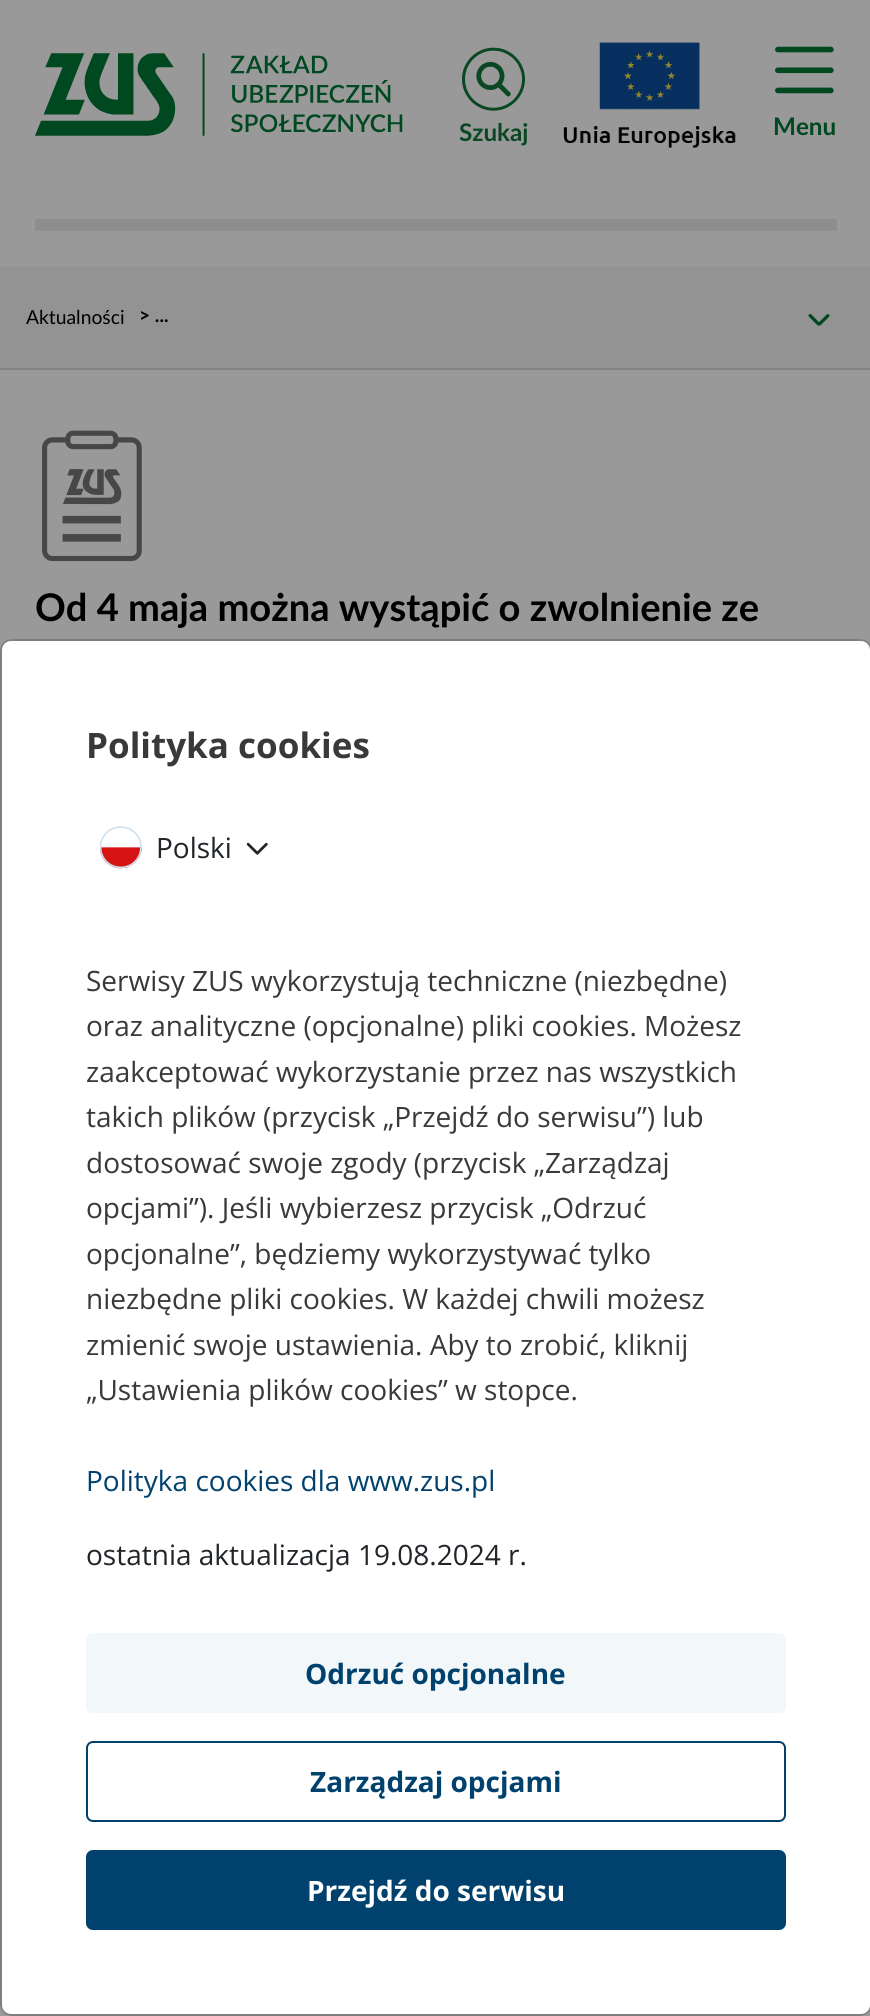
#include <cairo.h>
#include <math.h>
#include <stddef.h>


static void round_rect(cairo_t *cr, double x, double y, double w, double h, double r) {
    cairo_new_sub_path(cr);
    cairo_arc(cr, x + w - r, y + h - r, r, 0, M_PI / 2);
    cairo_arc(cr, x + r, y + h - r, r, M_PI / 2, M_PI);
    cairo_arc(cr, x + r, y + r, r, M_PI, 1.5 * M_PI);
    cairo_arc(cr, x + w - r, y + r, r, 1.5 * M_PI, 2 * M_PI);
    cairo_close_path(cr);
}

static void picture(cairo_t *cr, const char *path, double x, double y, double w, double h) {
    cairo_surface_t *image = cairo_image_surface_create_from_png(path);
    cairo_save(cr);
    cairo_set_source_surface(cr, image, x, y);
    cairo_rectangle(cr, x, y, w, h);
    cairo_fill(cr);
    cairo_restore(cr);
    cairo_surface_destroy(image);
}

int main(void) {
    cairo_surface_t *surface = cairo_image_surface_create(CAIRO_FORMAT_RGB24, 870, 2016);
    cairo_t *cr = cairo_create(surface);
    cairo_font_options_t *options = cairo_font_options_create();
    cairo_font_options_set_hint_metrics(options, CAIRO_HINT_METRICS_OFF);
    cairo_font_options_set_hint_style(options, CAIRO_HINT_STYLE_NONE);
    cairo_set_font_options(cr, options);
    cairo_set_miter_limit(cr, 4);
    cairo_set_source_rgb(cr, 0.6, 0.6, 0.6);
    cairo_paint(cr);
    cairo_set_source_rgb(cr, 0.557, 0.557, 0.557);
    cairo_rectangle(cr, 35, 219, 802, 12);
    cairo_fill(cr);
    picture(cr, "img1.png", 35, 53, 368, 83);
    picture(cr, "img2.png", 462, 47, 63, 64);
    cairo_select_font_face(cr, "Lato", CAIRO_FONT_SLANT_NORMAL, CAIRO_FONT_WEIGHT_BOLD);
    cairo_set_font_size(cr, 24.5);
    cairo_set_source_rgb(cr, 0.039, 0.282, 0.137);
    cairo_move_to(cr, 459, 141);
    cairo_show_text(cr, "Szukaj");
    picture(cr, "img3.png", 563, 42, 173, 106);
    picture(cr, "img4.png", 775, 46, 59, 48);
    cairo_set_source_rgb(cr, 0, 0.282, 0.122);
    cairo_move_to(cr, 773, 135);
    cairo_show_text(cr, "Menu");
    cairo_set_source_rgb(cr, 0.576, 0.576, 0.576);
    cairo_rectangle(cr, 0, 266, 870, 102);
    cairo_fill(cr);
    cairo_set_source_rgb(cr, 0.514, 0.514, 0.514);
    cairo_rectangle(cr, 0, 368, 870, 2);
    cairo_fill(cr);
    cairo_select_font_face(cr, "Lato", CAIRO_FONT_SLANT_NORMAL, CAIRO_FONT_WEIGHT_NORMAL);
    cairo_set_font_size(cr, 19.5);
    cairo_set_source_rgb(cr, 0, 0, 0);
    cairo_move_to(cr, 26, 324);
    cairo_show_text(cr, "Aktualności");
    cairo_select_font_face(cr, "Lato", CAIRO_FONT_SLANT_NORMAL, CAIRO_FONT_WEIGHT_BOLD);
    cairo_move_to(cr, 139, 322);
    cairo_show_text(cr, "> ...");
    picture(cr, "img5.png", 808, 314, 22, 12);
    picture(cr, "img6.png", 42, 430, 100, 132);
    cairo_set_font_size(cr, 38.5);
    cairo_move_to(cr, 35, 621);
    cairo_show_text(cr, "Od 4 maja można wystąpić o zwolnienie ze");
    cairo_set_source_rgb(cr, 1, 1, 1);
    round_rect(cr, 0, 639, 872, 1377, 11);
    cairo_fill(cr);
    round_rect(cr, 1, 640, 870, 1375, 10);
    cairo_set_source_rgba(cr, 0, 0, 0, 0.5);
    cairo_stroke(cr);
    cairo_select_font_face(cr, "Open Sans", CAIRO_FONT_SLANT_NORMAL, CAIRO_FONT_WEIGHT_BOLD);
    cairo_set_font_size(cr, 35);
    cairo_set_source_rgb(cr, 0.224, 0.224, 0.224);
    cairo_move_to(cr, 86, 758);
    cairo_show_text(cr, "Polityka cookies");
    picture(cr, "img7.png", 100, 826, 42, 43);
    cairo_select_font_face(cr, "Open Sans", CAIRO_FONT_SLANT_NORMAL, CAIRO_FONT_WEIGHT_NORMAL);
    cairo_set_font_size(cr, 28);
    cairo_set_source_rgb(cr, 0.129, 0.145, 0.161);
    cairo_move_to(cr, 156, 858);
    cairo_show_text(cr, "Polski");
    picture(cr, "img8.png", 246, 842, 22, 13);
    cairo_set_source_rgb(cr, 0.224, 0.224, 0.224);
    cairo_move_to(cr, 86, 991);
    cairo_show_text(cr, "Serwisy ZUS wykorzystują techniczne (niezbędne)");
    cairo_move_to(cr, 86, 1036);
    cairo_show_text(cr, "oraz analityczne (opcjonalne) pliki cookies. Możesz");
    cairo_move_to(cr, 86, 1082);
    cairo_show_text(cr, "zaakceptować wykorzystanie przez nas wszystkich");
    cairo_move_to(cr, 86, 1127);
    cairo_show_text(cr, "takich plików (przycisk „Przejdź do serwisu”) lub");
    cairo_move_to(cr, 86, 1173);
    cairo_show_text(cr, "dostosować swoje zgody (przycisk „Zarządzaj");
    cairo_move_to(cr, 86, 1218);
    cairo_show_text(cr, "opcjami”). Jeśli wybierzesz przycisk „Odrzuć");
    cairo_move_to(cr, 86, 1264);
    cairo_show_text(cr, "opcjonalne”, będziemy wykorzystywać tylko");
    cairo_move_to(cr, 86, 1309);
    cairo_show_text(cr, "niezbędne pliki cookies. W każdej chwili możesz");
    cairo_move_to(cr, 86, 1355);
    cairo_show_text(cr, "zmienić swoje ustawienia. Aby to zrobić, kliknij");
    cairo_move_to(cr, 86, 1400);
    cairo_show_text(cr, "„Ustawienia plików cookies” w stopce.");
    cairo_set_source_rgb(cr, 0, 0.255, 0.431);
    cairo_move_to(cr, 86, 1491);
    cairo_show_text(cr, "Polityka cookies dla www.zus.pl");
    cairo_set_source_rgb(cr, 0.129, 0.145, 0.161);
    cairo_move_to(cr, 86, 1565);
    cairo_show_text(cr, "ostatnia aktualizacja 19.08.2024 r.");
    cairo_set_source_rgb(cr, 0.949, 0.965, 0.98);
    round_rect(cr, 86, 1633, 700, 80, 7);
    cairo_fill(cr);
    cairo_select_font_face(cr, "Open Sans", CAIRO_FONT_SLANT_NORMAL, CAIRO_FONT_WEIGHT_BOLD);
    cairo_set_source_rgb(cr, 0, 0.255, 0.431);
    cairo_move_to(cr, 305, 1684);
    cairo_show_text(cr, "Odrzuć opcjonalne");
    round_rect(cr, 87, 1742, 698, 79, 6);
    cairo_stroke(cr);
    cairo_move_to(cr, 310, 1792);
    cairo_show_text(cr, "Zarządzaj opcjami");
    round_rect(cr, 87, 1851, 698, 78, 6);
    cairo_fill_preserve(cr);
    cairo_stroke(cr);
    cairo_set_source_rgb(cr, 1, 1, 1);
    cairo_move_to(cr, 307, 1901);
    cairo_show_text(cr, "Przejdź do serwisu");
    cairo_surface_write_to_png(surface, "page.png");
    cairo_font_options_destroy(options);
    cairo_destroy(cr);
    cairo_surface_destroy(surface);
    return 0;
}
